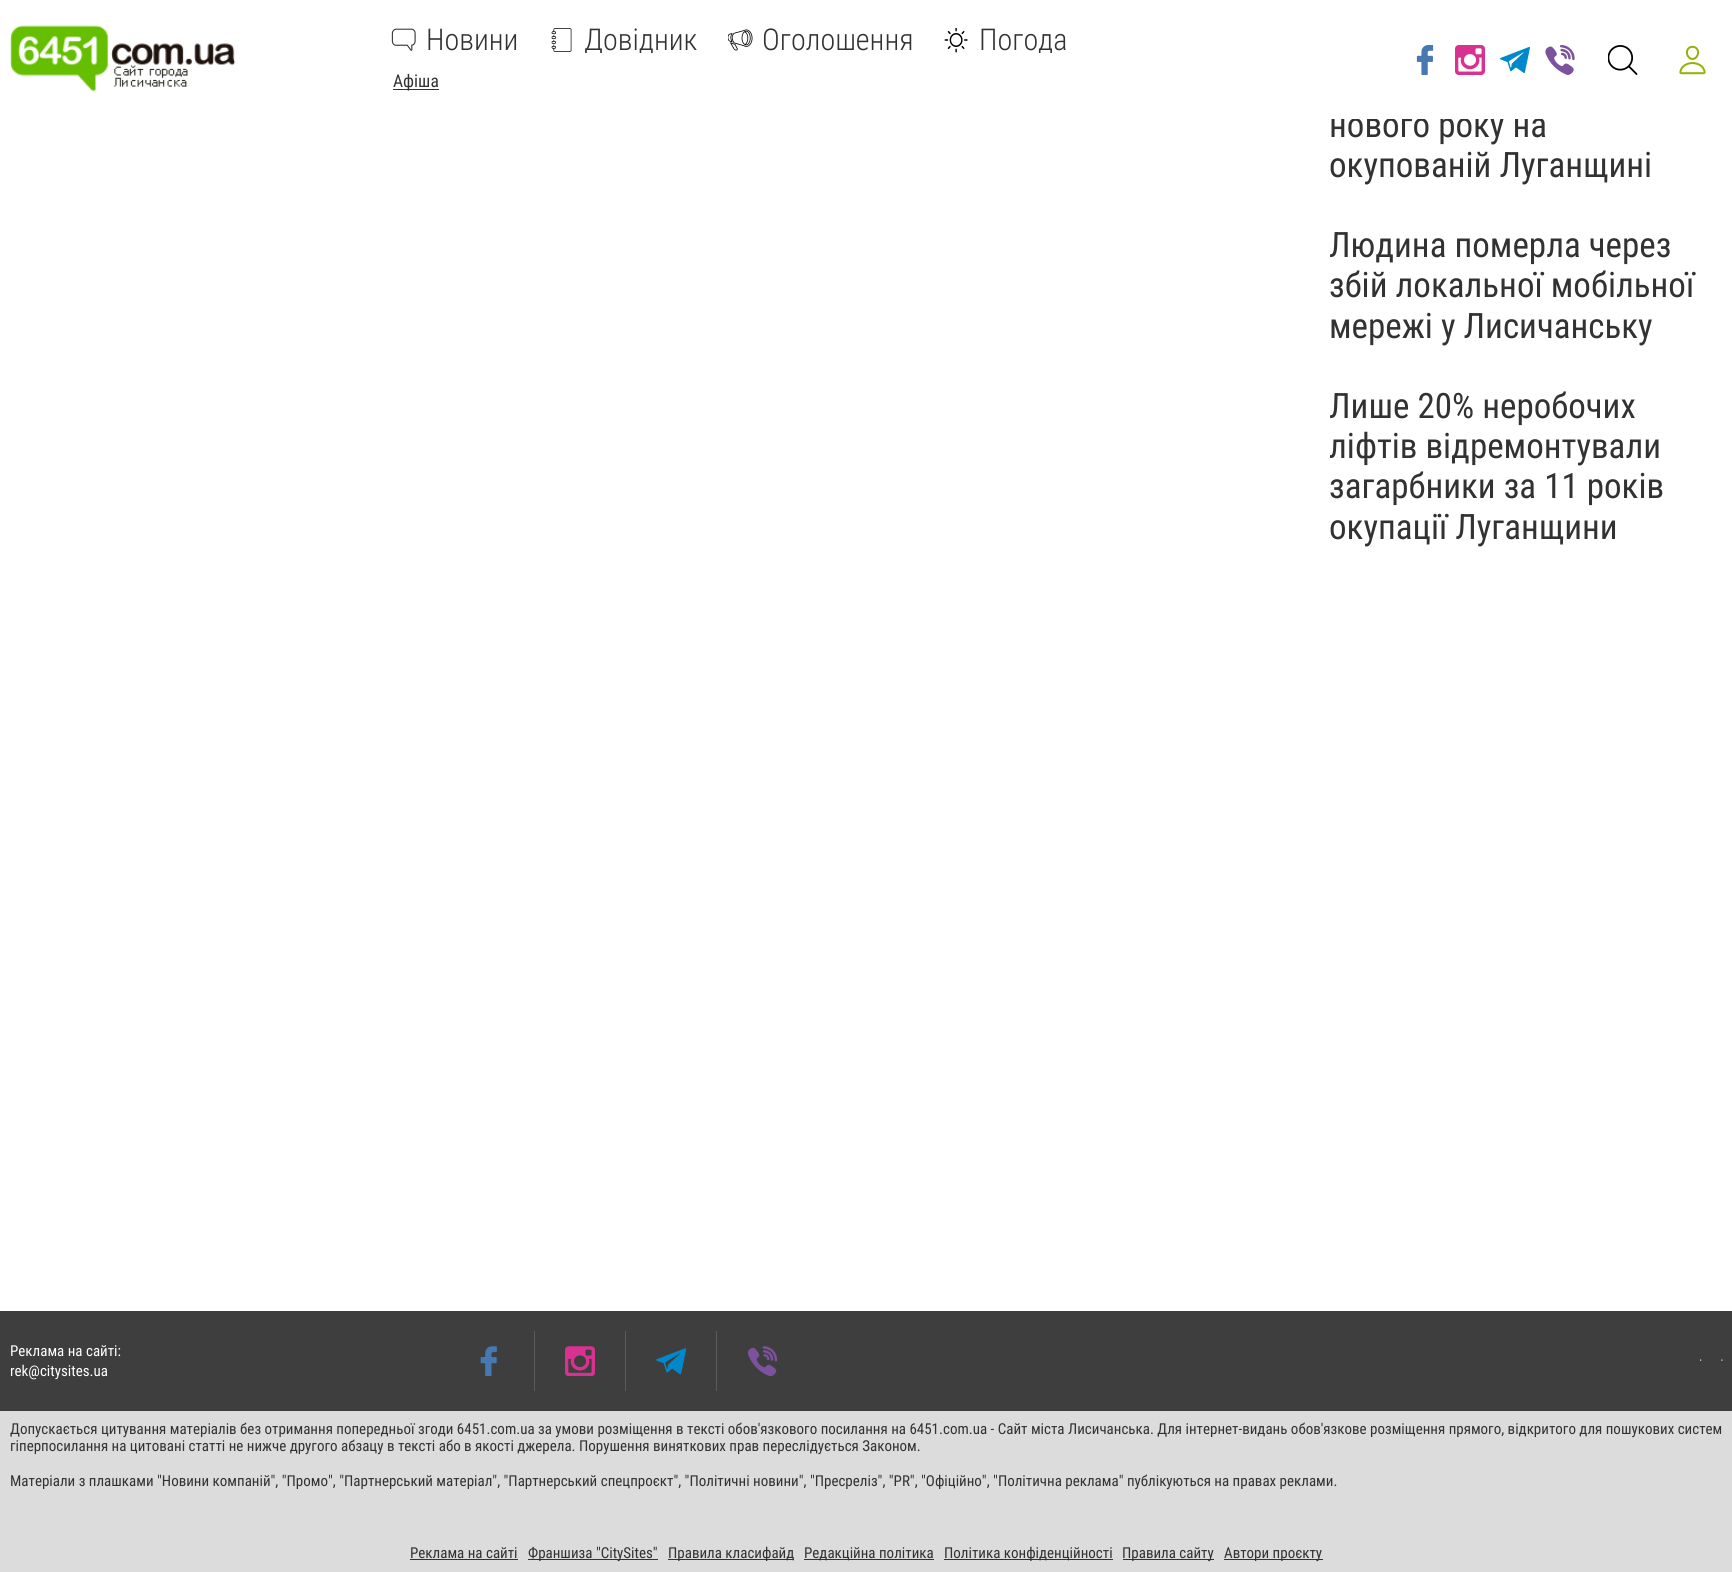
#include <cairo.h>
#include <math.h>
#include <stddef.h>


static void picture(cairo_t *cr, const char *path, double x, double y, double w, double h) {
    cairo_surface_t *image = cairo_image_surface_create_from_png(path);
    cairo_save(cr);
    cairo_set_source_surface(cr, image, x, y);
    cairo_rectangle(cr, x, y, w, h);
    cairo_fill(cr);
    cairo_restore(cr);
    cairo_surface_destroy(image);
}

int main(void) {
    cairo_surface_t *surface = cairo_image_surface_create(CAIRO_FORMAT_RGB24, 1732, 1572);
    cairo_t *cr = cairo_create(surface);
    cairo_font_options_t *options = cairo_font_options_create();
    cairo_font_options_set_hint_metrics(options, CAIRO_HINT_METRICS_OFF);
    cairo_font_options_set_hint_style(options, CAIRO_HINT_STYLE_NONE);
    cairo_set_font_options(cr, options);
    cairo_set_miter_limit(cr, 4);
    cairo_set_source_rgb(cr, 1, 1, 1);
    cairo_paint(cr);
    cairo_select_font_face(cr, "Roboto Condensed", CAIRO_FONT_SLANT_NORMAL, CAIRO_FONT_WEIGHT_NORMAL);
    cairo_set_font_size(cr, 35);
    cairo_set_source_rgb(cr, 0.196, 0.196, 0.196);
    cairo_move_to(cr, 1329, 137);
    cairo_show_text(cr, "нового року на");
    cairo_set_source_rgb(cr, 1, 1, 1);
    cairo_rectangle(cr, 1331, 118, 212, 1);
    cairo_fill(cr);
    picture(cr, "img1.png", 10, 25, 226, 67);
    picture(cr, "img2.png", 391, 28, 25, 23);
    cairo_select_font_face(cr, "Roboto Condensed Light", CAIRO_FONT_SLANT_NORMAL, CAIRO_FONT_WEIGHT_NORMAL);
    cairo_set_font_size(cr, 30);
    cairo_set_source_rgb(cr, 0.196, 0.196, 0.196);
    cairo_move_to(cr, 426, 50);
    cairo_show_text(cr, "Новини");
    picture(cr, "img3.png", 551, 28, 21, 24);
    cairo_save(cr);
    cairo_rectangle(cr, 549, 28, 149, 25);
    cairo_clip(cr);
    cairo_move_to(cr, 584, 50);
    cairo_show_text(cr, "Довідник");
    cairo_restore(cr);
    picture(cr, "img4.png", 728, 29, 25, 22);
    cairo_move_to(cr, 762, 50);
    cairo_show_text(cr, "Оголошення");
    picture(cr, "img5.png", 944, 28, 24, 25);
    cairo_save(cr);
    cairo_rectangle(cr, 944, 28, 124, 25);
    cairo_clip(cr);
    cairo_move_to(cr, 979, 50);
    cairo_show_text(cr, "Погода");
    cairo_restore(cr);
    cairo_rectangle(cr, 393, 89, 46, 1);
    cairo_fill(cr);
    cairo_select_font_face(cr, "Roboto Condensed", CAIRO_FONT_SLANT_NORMAL, CAIRO_FONT_WEIGHT_NORMAL);
    cairo_set_font_size(cr, 17.5);
    cairo_move_to(cr, 393, 87);
    cairo_show_text(cr, "Афіша");
    picture(cr, "img6.png", 1416, 45, 18, 30);
    picture(cr, "img7.png", 1455, 45, 30, 30);
    picture(cr, "img8.png", 1500, 47, 30, 26);
    picture(cr, "img9.png", 1545, 45, 30, 30);
    picture(cr, "img10.png", 1608, 45, 30, 30);
    picture(cr, "img11.png", 1679, 45, 27, 30);
    cairo_set_font_size(cr, 35);
    cairo_move_to(cr, 1329, 177);
    cairo_show_text(cr, "окупованій Луганщині");
    cairo_move_to(cr, 1329, 257);
    cairo_show_text(cr, "Людина померла через");
    cairo_move_to(cr, 1329, 297);
    cairo_show_text(cr, "збій локальної мобільної");
    cairo_move_to(cr, 1329, 338);
    cairo_show_text(cr, "мережі у Лисичанську");
    cairo_move_to(cr, 1329, 418);
    cairo_show_text(cr, "Лише 20% неробочих");
    cairo_move_to(cr, 1329, 458);
    cairo_show_text(cr, "ліфтів відремонтували");
    cairo_move_to(cr, 1329, 498);
    cairo_show_text(cr, "загарбники за 11 років");
    cairo_move_to(cr, 1329, 539);
    cairo_show_text(cr, "окупації Луганщини");
    cairo_set_source_rgb(cr, 0.247, 0.243, 0.243);
    cairo_rectangle(cr, 0, 1311, 1732, 100);
    cairo_fill(cr);
    cairo_set_font_size(cr, 15);
    cairo_set_source_rgb(cr, 1, 1, 1);
    cairo_move_to(cr, 10, 1356);
    cairo_show_text(cr, "Реклама на сайті:");
    cairo_move_to(cr, 10, 1376);
    cairo_show_text(cr, "rek@citysites.ua");
    cairo_set_source_rgb(cr, 0.361, 0.357, 0.357);
    cairo_rectangle(cr, 534, 1331, 1, 60);
    cairo_fill(cr);
    picture(cr, "img12.png", 480, 1346, 17, 30);
    cairo_rectangle(cr, 625, 1331, 1, 60);
    cairo_fill(cr);
    picture(cr, "img13.png", 565, 1346, 30, 30);
    cairo_rectangle(cr, 716, 1331, 1, 60);
    cairo_fill(cr);
    picture(cr, "img14.png", 656, 1348, 30, 27);
    picture(cr, "img15.png", 748, 1346, 30, 30);
    picture(cr, "img16.png", 1700, 1359, 2, 2);
    picture(cr, "img17.png", 1721, 1359, 2, 2);
    cairo_set_source_rgb(cr, 0.863, 0.863, 0.863);
    cairo_rectangle(cr, 0, 1411, 1732, 161);
    cairo_fill(cr);
    cairo_set_source_rgb(cr, 0.196, 0.196, 0.196);
    cairo_move_to(cr, 10, 1434);
    cairo_show_text(cr, "Допускається цитування матеріалів без отримання попередньої згоди 6451.com.ua за умови розміщення в тексті обов'язкового посилання на 6451.com.ua - Сайт міста Лисичанська. Для інтернет-видань обов'язкове розміщення прямого, відкритого для пошукових систем");
    cairo_move_to(cr, 10, 1451);
    cairo_show_text(cr, "гіперпосилання на цитовані статті не нижче другого абзацу в тексті або в якості джерела. Порушення виняткових прав переслідується Законом.");
    cairo_move_to(cr, 10, 1486);
    cairo_show_text(cr, "Матеріали з плашками \"Новини компаній\", \"Промо\", \"Партнерський матеріал\", \"Партнерський спецпроєкт\", \"Політичні новини\", \"Пресреліз\", \"PR\", \"Офіційно\", \"Політична реклама\" публікуються на правах реклами.");
    cairo_move_to(cr, 410, 1558);
    cairo_show_text(cr, "Реклама на сайті");
    cairo_rectangle(cr, 410, 1559, 108, 1);
    cairo_fill(cr);
    cairo_rectangle(cr, 528, 1559, 130, 1);
    cairo_fill(cr);
    cairo_move_to(cr, 528, 1558);
    cairo_show_text(cr, "Франшиза \"CitySites\"");
    cairo_rectangle(cr, 668, 1559, 126, 1);
    cairo_fill(cr);
    cairo_move_to(cr, 668, 1558);
    cairo_show_text(cr, "Правила класифайд");
    cairo_rectangle(cr, 804, 1559, 130, 1);
    cairo_fill(cr);
    cairo_move_to(cr, 804, 1558);
    cairo_show_text(cr, "Редакційна політика");
    cairo_rectangle(cr, 944, 1559, 169, 1);
    cairo_fill(cr);
    cairo_move_to(cr, 944, 1558);
    cairo_show_text(cr, "Політика конфіденційності");
    cairo_rectangle(cr, 1123, 1559, 91, 1);
    cairo_fill(cr);
    cairo_move_to(cr, 1122, 1558);
    cairo_show_text(cr, "Правила сайту");
    cairo_rectangle(cr, 1224, 1559, 99, 1);
    cairo_fill(cr);
    cairo_move_to(cr, 1224, 1558);
    cairo_show_text(cr, "Автори проєкту");
    cairo_surface_write_to_png(surface, "page.png");
    cairo_font_options_destroy(options);
    cairo_destroy(cr);
    cairo_surface_destroy(surface);
    return 0;
}
